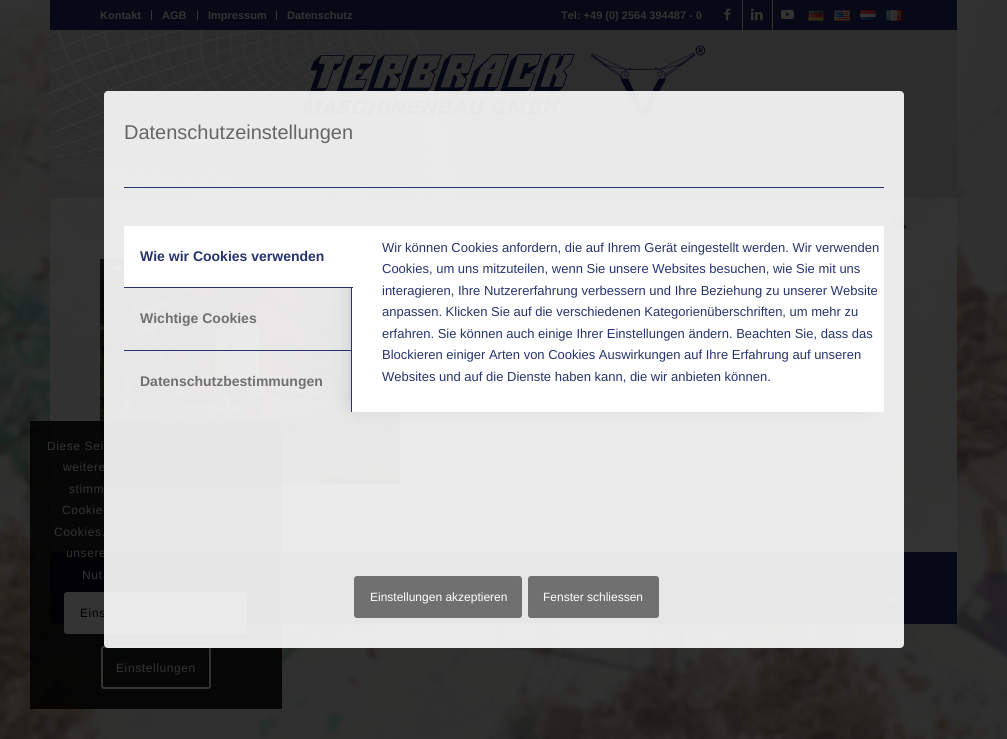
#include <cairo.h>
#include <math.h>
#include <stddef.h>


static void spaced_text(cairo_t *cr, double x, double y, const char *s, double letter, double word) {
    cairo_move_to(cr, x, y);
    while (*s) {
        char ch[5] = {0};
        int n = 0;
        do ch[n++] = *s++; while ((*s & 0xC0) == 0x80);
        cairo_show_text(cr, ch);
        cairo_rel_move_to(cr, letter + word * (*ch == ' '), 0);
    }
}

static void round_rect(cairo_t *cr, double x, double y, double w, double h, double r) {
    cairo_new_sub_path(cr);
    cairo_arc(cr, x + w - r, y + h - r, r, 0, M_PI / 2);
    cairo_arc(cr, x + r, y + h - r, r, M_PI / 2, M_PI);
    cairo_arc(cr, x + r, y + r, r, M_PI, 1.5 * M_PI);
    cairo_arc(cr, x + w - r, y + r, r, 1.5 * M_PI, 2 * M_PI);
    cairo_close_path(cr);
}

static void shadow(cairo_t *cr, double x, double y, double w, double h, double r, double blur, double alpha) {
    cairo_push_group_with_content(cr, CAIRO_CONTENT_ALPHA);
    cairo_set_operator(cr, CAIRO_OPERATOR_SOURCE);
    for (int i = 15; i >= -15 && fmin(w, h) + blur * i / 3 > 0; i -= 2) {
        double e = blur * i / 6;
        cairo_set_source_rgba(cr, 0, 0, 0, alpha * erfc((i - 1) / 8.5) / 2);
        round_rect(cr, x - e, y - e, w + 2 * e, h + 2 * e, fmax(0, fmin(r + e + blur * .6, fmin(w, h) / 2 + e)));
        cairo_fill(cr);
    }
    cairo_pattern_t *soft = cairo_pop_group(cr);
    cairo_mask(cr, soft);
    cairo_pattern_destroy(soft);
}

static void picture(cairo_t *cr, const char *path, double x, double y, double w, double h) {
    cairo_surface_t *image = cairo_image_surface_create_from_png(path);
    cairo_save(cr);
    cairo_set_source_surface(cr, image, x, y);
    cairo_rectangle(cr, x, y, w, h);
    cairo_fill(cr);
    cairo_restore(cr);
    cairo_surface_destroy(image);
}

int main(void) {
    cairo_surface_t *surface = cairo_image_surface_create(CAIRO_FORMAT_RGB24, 1007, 739);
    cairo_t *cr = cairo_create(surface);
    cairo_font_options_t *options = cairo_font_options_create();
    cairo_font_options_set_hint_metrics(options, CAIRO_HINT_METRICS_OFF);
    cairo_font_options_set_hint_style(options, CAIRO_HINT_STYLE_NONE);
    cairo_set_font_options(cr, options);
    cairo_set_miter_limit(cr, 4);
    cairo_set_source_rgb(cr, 1, 1, 1);
    cairo_paint(cr);
    picture(cr, "img1.png", 0, 0, 1007, 739);
    cairo_set_source_rgb(cr, 0.031, 0.039, 0.086);
    cairo_rectangle(cr, 50, 0, 907, 30);
    cairo_fill(cr);
    cairo_set_source_rgb(cr, 0.2, 0.2, 0.2);
    cairo_rectangle(cr, 151, 10, 1, 10);
    cairo_fill(cr);
    cairo_select_font_face(cr, "Liberation Sans", CAIRO_FONT_SLANT_NORMAL, CAIRO_FONT_WEIGHT_BOLD);
    cairo_set_font_size(cr, 11);
    cairo_move_to(cr, 100, 19);
    cairo_show_text(cr, "Kontakt");
    cairo_rectangle(cr, 197, 10, 1, 10);
    cairo_fill(cr);
    cairo_move_to(cr, 162, 19);
    cairo_show_text(cr, "AGB");
    cairo_rectangle(cr, 276, 10, 1, 10);
    cairo_fill(cr);
    cairo_move_to(cr, 208, 19);
    cairo_show_text(cr, "Impressum");
    cairo_move_to(cr, 287, 19);
    cairo_show_text(cr, "Datenschutz");
    cairo_move_to(cr, 561, 19);
    cairo_show_text(cr, "Tel: +49 (0) 2564 394487 - 0");
    cairo_rectangle(cr, 742, 0, 1, 30);
    cairo_fill(cr);
    picture(cr, "img2.png", 724, 8, 7, 13);
    cairo_rectangle(cr, 772, 0, 1, 30);
    cairo_fill(cr);
    picture(cr, "img3.png", 751, 8, 12, 13);
    picture(cr, "img4.png", 781, 9, 13, 10);
    picture(cr, "img5.png", 808, 10, 16, 11);
    picture(cr, "img6.png", 834, 10, 16, 11);
    picture(cr, "img7.png", 860, 10, 16, 11);
    picture(cr, "img8.png", 886, 10, 16, 11);
    picture(cr, "img9.png", 50, 30, 907, 168);
    picture(cr, "img10.png", 302, 45, 403, 71);
    cairo_set_source_rgba(cr, 0.2, 0.2, 0.2, 0.9);
    cairo_rectangle(cr, 50, 198, 907, 354);
    cairo_fill(cr);
    picture(cr, "img11.png", 893, 215, 14, 14);
    picture(cr, "img12.png", 100, 259, 300, 225);
    cairo_set_source_rgb(cr, 0.031, 0.039, 0.086);
    cairo_rectangle(cr, 50, 552, 907, 72);
    cairo_fill(cr);
    picture(cr, "img13.png", 829, 594, 6, 11);
    picture(cr, "img14.png", 857, 594, 10, 10);
    picture(cr, "img15.png", 886, 595, 11, 8);
    cairo_set_source_rgba(cr, 0, 0, 0, 0.85);
    cairo_rectangle(cr, 30, 421, 252, 288);
    cairo_fill(cr);
    cairo_select_font_face(cr, "Liberation Sans", CAIRO_FONT_SLANT_NORMAL, CAIRO_FONT_WEIGHT_NORMAL);
    cairo_set_font_size(cr, 12);
    cairo_set_source_rgb(cr, 0.2, 0.2, 0.2);
    spaced_text(cr, 47, 450, "Diese Sei", 0.6, 0);
    spaced_text(cr, 63, 471, "weitere", 0.6, 0);
    spaced_text(cr, 69, 493, "stimm", 0.6, 0);
    spaced_text(cr, 62, 514, "Cookie", 0.6, 0);
    spaced_text(cr, 54, 536, "Cookies.", 0.6, 0);
    spaced_text(cr, 66, 557, "unsere", 0.6, 0);
    spaced_text(cr, 82, 579, "Nut", 0.6, 0);
    round_rect(cr, 64, 592, 183, 42, 3);
    cairo_fill(cr);
    cairo_set_source_rgb(cr, 0, 0, 0);
    spaced_text(cr, 80, 617, "Eins", 0.6, 0);
    round_rect(cr, 102, 647, 108, 41, 2);
    cairo_set_source_rgb(cr, 0.2, 0.2, 0.2);
    cairo_stroke(cr);
    spaced_text(cr, 116, 672, "Einstellungen", 0.6, 0);
    cairo_set_source_rgba(cr, 1, 1, 1, 0.9);
    round_rect(cr, 104, 91, 800, 557, 4);
    cairo_fill(cr);
    cairo_set_font_size(cr, 20);
    cairo_set_source_rgb(cr, 0.4, 0.4, 0.4);
    cairo_move_to(cr, 124, 139);
    cairo_show_text(cr, "Datenschutzeinstellungen");
    cairo_set_source_rgb(cr, 0.149, 0.2, 0.435);
    cairo_rectangle(cr, 124, 187, 760, 1);
    cairo_fill(cr);
    cairo_save(cr);
    cairo_rectangle(cr, 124, 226, 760, 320);
    cairo_clip(cr);
    cairo_set_source_rgb(cr, 0, 0, 0);
    shadow(cr, 354, 236, 512, 166, 0, 10, 0.2);
    cairo_restore(cr);
    cairo_rectangle(cr, 351, 287, 1, 64);
    cairo_fill(cr);
    cairo_set_source_rgb(cr, 1, 1, 1);
    round_rect(cr, 352, 226, 532, 186, 2);
    cairo_fill(cr);
    cairo_new_path(cr);
    cairo_move_to(cr, 126, 226);
    cairo_line_to(cr, 353, 226);
    cairo_line_to(cr, 353, 288);
    cairo_line_to(cr, 124, 288);
    cairo_line_to(cr, 124, 228);
    cairo_curve_to(cr, 124, 227, 125, 226, 126, 226);
    cairo_close_path(cr);
    cairo_fill(cr);
    cairo_set_source_rgb(cr, 0.149, 0.2, 0.435);
    cairo_rectangle(cr, 124, 287, 229, 1);
    cairo_fill(cr);
    cairo_select_font_face(cr, "Liberation Sans", CAIRO_FONT_SLANT_NORMAL, CAIRO_FONT_WEIGHT_BOLD);
    cairo_set_font_size(cr, 14);
    cairo_move_to(cr, 140, 261);
    cairo_show_text(cr, "Wie wir Cookies verwenden");
    cairo_rectangle(cr, 124, 350, 228, 1);
    cairo_fill(cr);
    cairo_set_source_rgb(cr, 0.439, 0.439, 0.439);
    cairo_move_to(cr, 140, 323);
    cairo_show_text(cr, "Wichtige Cookies");
    cairo_set_source_rgb(cr, 0.149, 0.2, 0.435);
    cairo_rectangle(cr, 351, 350, 1, 62);
    cairo_fill(cr);
    cairo_set_source_rgb(cr, 0.439, 0.439, 0.439);
    cairo_move_to(cr, 140, 386);
    cairo_show_text(cr, "Datenschutzbestimmungen");
    cairo_select_font_face(cr, "Liberation Sans", CAIRO_FONT_SLANT_NORMAL, CAIRO_FONT_WEIGHT_NORMAL);
    cairo_set_font_size(cr, 13);
    cairo_set_source_rgb(cr, 0.149, 0.2, 0.435);
    cairo_move_to(cr, 382, 252);
    cairo_show_text(cr, "Wir können Cookies anfordern, die auf Ihrem Gerät eingestellt werden. Wir verwenden");
    cairo_move_to(cr, 382, 273);
    cairo_show_text(cr, "Cookies, um uns mitzuteilen, wenn Sie unsere Websites besuchen, wie Sie mit uns");
    cairo_move_to(cr, 382, 295);
    cairo_show_text(cr, "interagieren, Ihre Nutzererfahrung verbessern und Ihre Beziehung zu unserer Website");
    cairo_move_to(cr, 382, 316);
    cairo_show_text(cr, "anpassen. Klicken Sie auf die verschiedenen Kategorienüberschriften, um mehr zu");
    cairo_move_to(cr, 382, 338);
    cairo_show_text(cr, "erfahren. Sie können auch einige Ihrer Einstellungen ändern. Beachten Sie, dass das");
    cairo_move_to(cr, 382, 359);
    cairo_show_text(cr, "Blockieren einiger Arten von Cookies Auswirkungen auf Ihre Erfahrung auf unseren");
    cairo_move_to(cr, 382, 381);
    cairo_show_text(cr, "Websites und auf die Dienste haben kann, die wir anbieten können.");
    cairo_set_source_rgb(cr, 0.439, 0.439, 0.439);
    round_rect(cr, 355, 577, 166, 40, 2);
    cairo_fill_preserve(cr);
    cairo_stroke(cr);
    cairo_set_font_size(cr, 12);
    cairo_set_source_rgb(cr, 1, 1, 1);
    cairo_move_to(cr, 370, 601);
    cairo_show_text(cr, "Einstellungen akzeptieren");
    cairo_set_source_rgb(cr, 0.439, 0.439, 0.439);
    round_rect(cr, 529, 577, 129, 40, 2);
    cairo_fill_preserve(cr);
    cairo_stroke(cr);
    cairo_set_source_rgb(cr, 1, 1, 1);
    cairo_move_to(cr, 543, 601);
    cairo_show_text(cr, "Fenster schliessen");
    cairo_surface_write_to_png(surface, "page.png");
    cairo_font_options_destroy(options);
    cairo_destroy(cr);
    cairo_surface_destroy(surface);
    return 0;
}
